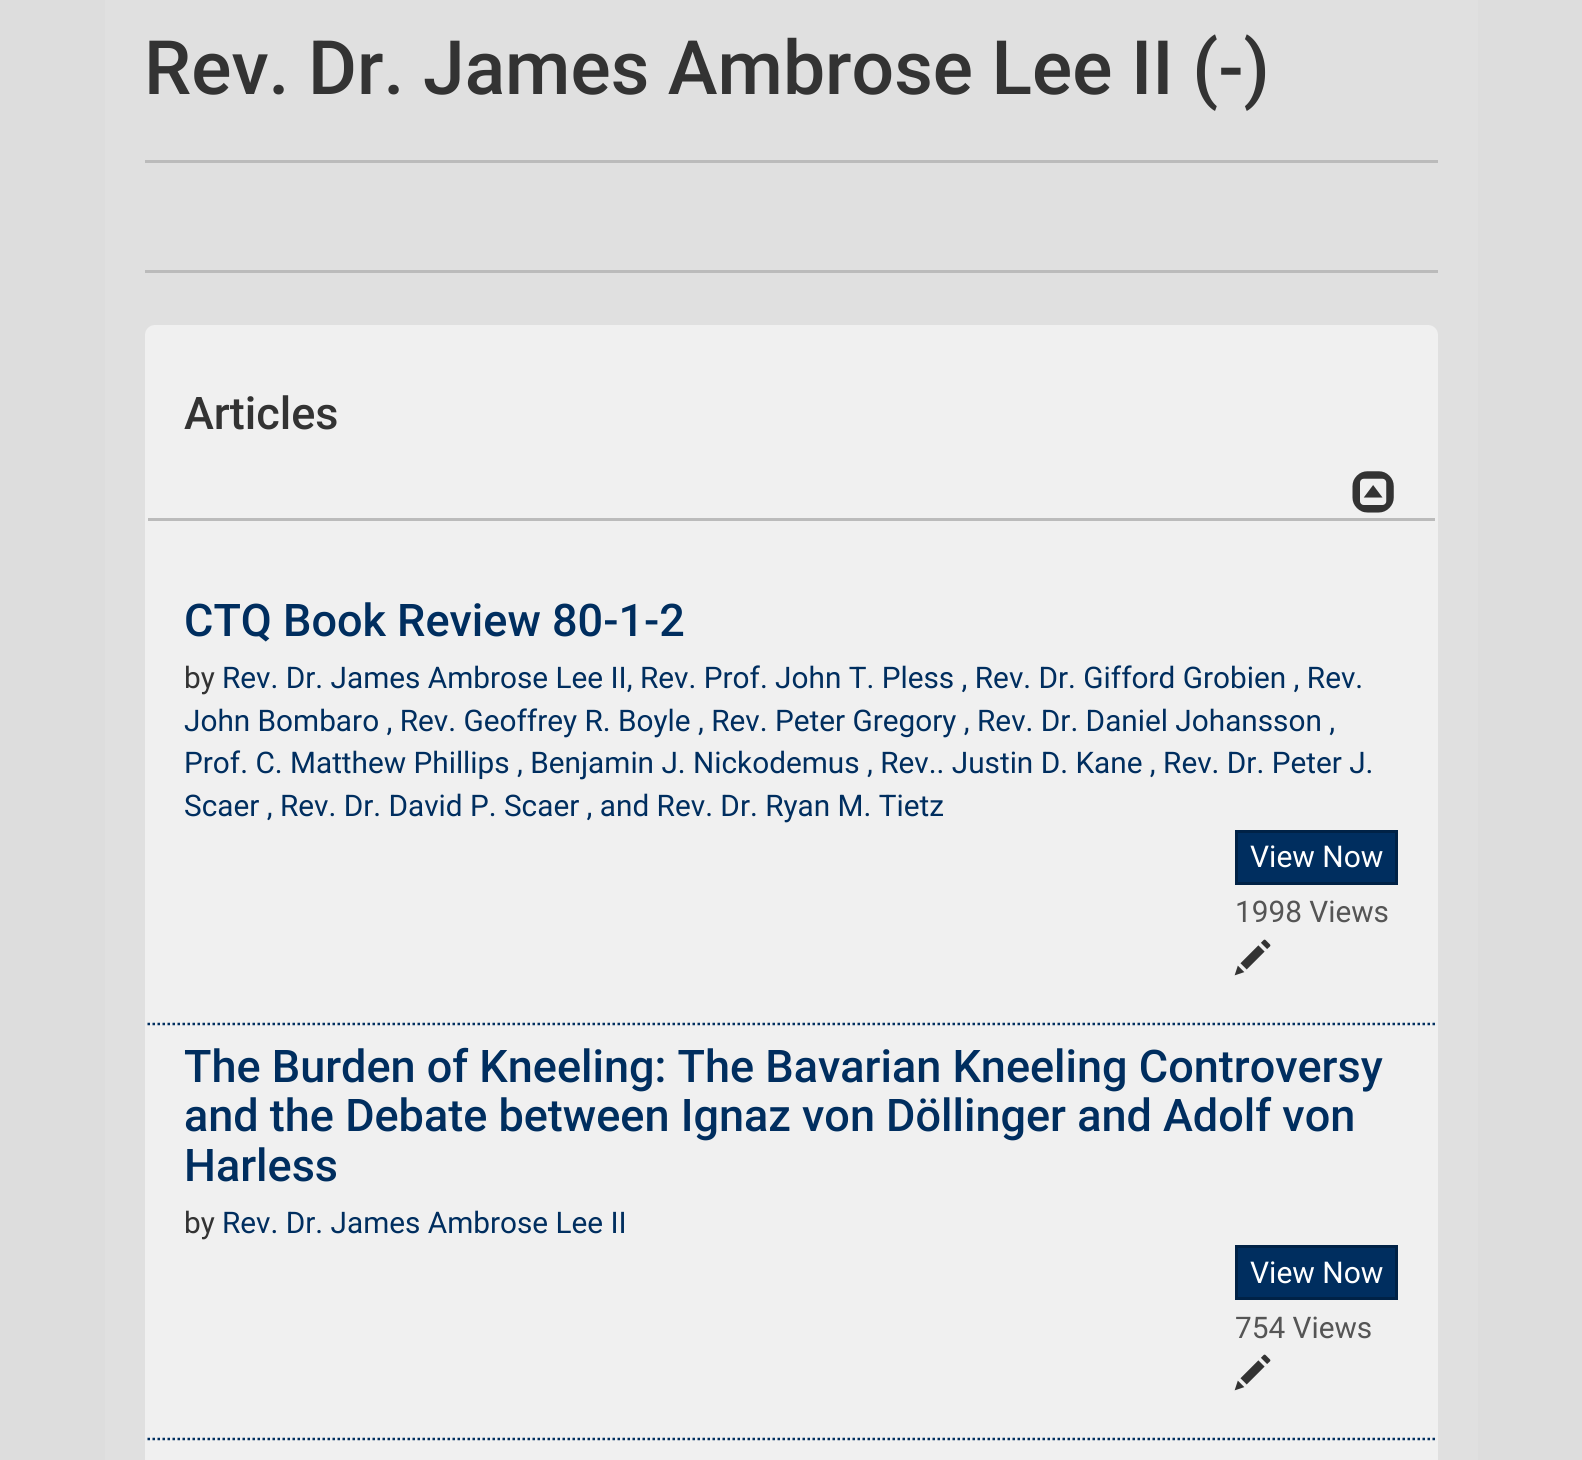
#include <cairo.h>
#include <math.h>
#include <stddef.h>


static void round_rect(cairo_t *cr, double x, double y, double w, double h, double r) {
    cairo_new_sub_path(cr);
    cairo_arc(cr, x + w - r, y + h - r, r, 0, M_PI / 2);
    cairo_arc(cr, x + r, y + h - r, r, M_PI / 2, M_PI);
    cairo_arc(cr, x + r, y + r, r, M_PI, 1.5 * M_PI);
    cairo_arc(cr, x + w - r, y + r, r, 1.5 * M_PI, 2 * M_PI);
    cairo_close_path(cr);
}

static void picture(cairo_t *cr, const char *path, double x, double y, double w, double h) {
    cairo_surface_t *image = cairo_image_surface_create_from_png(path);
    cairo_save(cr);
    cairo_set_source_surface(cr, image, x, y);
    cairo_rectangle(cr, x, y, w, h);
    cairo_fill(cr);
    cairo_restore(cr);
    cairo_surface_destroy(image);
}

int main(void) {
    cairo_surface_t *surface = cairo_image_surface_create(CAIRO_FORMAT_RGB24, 1582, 1460);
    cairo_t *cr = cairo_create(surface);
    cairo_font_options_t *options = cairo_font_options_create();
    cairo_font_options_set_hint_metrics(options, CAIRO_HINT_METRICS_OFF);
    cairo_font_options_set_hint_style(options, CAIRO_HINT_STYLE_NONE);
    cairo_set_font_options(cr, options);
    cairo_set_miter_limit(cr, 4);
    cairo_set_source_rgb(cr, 0.867, 0.867, 0.867);
    cairo_paint(cr);
    cairo_set_source_rgb(cr, 0.878, 0.878, 0.878);
    cairo_rectangle(cr, 105, 0, 1373, 1460);
    cairo_fill(cr);
    cairo_select_font_face(cr, "Roboto Medium", CAIRO_FONT_SLANT_NORMAL, CAIRO_FONT_WEIGHT_NORMAL);
    cairo_set_font_size(cr, 75);
    cairo_set_source_rgb(cr, 0.2, 0.2, 0.2);
    cairo_move_to(cr, 144, 94);
    cairo_show_text(cr, "Rev. Dr. James Ambrose Lee II (-)");
    cairo_set_source_rgb(cr, 0.733, 0.733, 0.733);
    cairo_rectangle(cr, 145, 160, 1293, 3);
    cairo_fill(cr);
    cairo_rectangle(cr, 145, 270, 1293, 3);
    cairo_fill(cr);
    cairo_set_source_rgb(cr, 0.941, 0.941, 0.941);
    round_rect(cr, 145, 325, 1293, 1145, 10);
    cairo_fill(cr);
    cairo_set_font_size(cr, 45);
    cairo_set_source_rgb(cr, 0.2, 0.2, 0.2);
    cairo_move_to(cr, 184, 429);
    cairo_show_text(cr, "Articles");
    picture(cr, "img1.png", 1352, 471, 42, 42);
    cairo_set_source_rgb(cr, 0.733, 0.733, 0.733);
    cairo_rectangle(cr, 148, 518, 1287, 3);
    cairo_fill(cr);
    cairo_new_path(cr);
    cairo_move_to(cr, 147.5, 1024);
    cairo_line_to(cr, 1435, 1024);
    cairo_set_source_rgb(cr, 0, 0.18, 0.373);
    cairo_set_line_width(cr, 2.5);
    cairo_set_dash(cr, (double[]){2.5, 2.5}, 2, 0);
    cairo_stroke(cr);
    cairo_move_to(cr, 184, 636);
    cairo_show_text(cr, "CTQ Book Review 80-1-2");
    cairo_select_font_face(cr, "Roboto", CAIRO_FONT_SLANT_NORMAL, CAIRO_FONT_WEIGHT_NORMAL);
    cairo_set_font_size(cr, 29.75);
    cairo_set_source_rgb(cr, 0.2, 0.2, 0.2);
    cairo_move_to(cr, 184, 688);
    cairo_show_text(cr, "by");
    cairo_set_source_rgb(cr, 0, 0.18, 0.373);
    cairo_move_to(cr, 222, 688);
    cairo_show_text(cr, "Rev. Dr. James Ambrose Lee II,");
    cairo_move_to(cr, 640, 688);
    cairo_show_text(cr, "Rev. Prof. John T. Pless , Rev. Dr. Gifford Grobien , Rev.");
    cairo_move_to(cr, 184, 731);
    cairo_show_text(cr, "John Bombaro , Rev. Geoffrey R. Boyle , Rev. Peter Gregory , Rev. Dr. Daniel Johansson ,");
    cairo_move_to(cr, 184, 773);
    cairo_show_text(cr, "Prof. C. Matthew Phillips , Benjamin J. Nickodemus , Rev.. Justin D. Kane , Rev. Dr. Peter J.");
    cairo_move_to(cr, 184, 816);
    cairo_show_text(cr, "Scaer , Rev. Dr. David P. Scaer , and Rev. Dr. Ryan M. Tietz");
    cairo_rectangle(cr, 1236.5, 831.5, 160, 52);
    cairo_fill_preserve(cr);
    cairo_set_source_rgb(cr, 0, 0.133, 0.275);
    cairo_set_line_width(cr, 3);
    cairo_set_dash(cr, NULL, 0, 0);
    cairo_stroke(cr);
    cairo_set_font_size(cr, 30);
    cairo_set_source_rgb(cr, 1, 1, 1);
    cairo_move_to(cr, 1250, 867);
    cairo_show_text(cr, "View Now");
    cairo_set_font_size(cr, 29.75);
    cairo_set_source_rgb(cr, 0.333, 0.333, 0.333);
    cairo_move_to(cr, 1235, 922);
    cairo_show_text(cr, "1998 Views");
    picture(cr, "img2.png", 1234, 939, 37, 37);
    cairo_new_path(cr);
    cairo_move_to(cr, 147.5, 1439);
    cairo_line_to(cr, 1435, 1439);
    cairo_set_source_rgb(cr, 0, 0.18, 0.373);
    cairo_set_line_width(cr, 2.5);
    cairo_set_dash(cr, (double[]){2.5, 2.5}, 2, 0);
    cairo_stroke(cr);
    cairo_select_font_face(cr, "Roboto Medium", CAIRO_FONT_SLANT_NORMAL, CAIRO_FONT_WEIGHT_NORMAL);
    cairo_set_font_size(cr, 45);
    cairo_move_to(cr, 184, 1082);
    cairo_show_text(cr, "The Burden of Kneeling: The Bavarian Kneeling Controversy");
    cairo_move_to(cr, 184, 1131);
    cairo_show_text(cr, "and the Debate between Ignaz von Döllinger and Adolf von");
    cairo_move_to(cr, 184, 1181);
    cairo_show_text(cr, "Harless");
    cairo_select_font_face(cr, "Roboto", CAIRO_FONT_SLANT_NORMAL, CAIRO_FONT_WEIGHT_NORMAL);
    cairo_set_font_size(cr, 29.75);
    cairo_set_source_rgb(cr, 0.2, 0.2, 0.2);
    cairo_move_to(cr, 184, 1233);
    cairo_show_text(cr, "by");
    cairo_set_source_rgb(cr, 0, 0.18, 0.373);
    cairo_move_to(cr, 222, 1233);
    cairo_show_text(cr, "Rev. Dr. James Ambrose Lee II");
    cairo_rectangle(cr, 1236.5, 1246.5, 160, 52);
    cairo_fill_preserve(cr);
    cairo_set_source_rgb(cr, 0, 0.133, 0.275);
    cairo_set_line_width(cr, 3);
    cairo_set_dash(cr, NULL, 0, 0);
    cairo_stroke(cr);
    cairo_set_font_size(cr, 30);
    cairo_set_source_rgb(cr, 1, 1, 1);
    cairo_move_to(cr, 1250, 1283);
    cairo_show_text(cr, "View Now");
    cairo_set_font_size(cr, 29.75);
    cairo_set_source_rgb(cr, 0.333, 0.333, 0.333);
    cairo_move_to(cr, 1235, 1338);
    cairo_show_text(cr, "754 Views");
    picture(cr, "img2.png", 1234, 1354, 37, 37);
    cairo_surface_write_to_png(surface, "page.png");
    cairo_font_options_destroy(options);
    cairo_destroy(cr);
    cairo_surface_destroy(surface);
    return 0;
}
